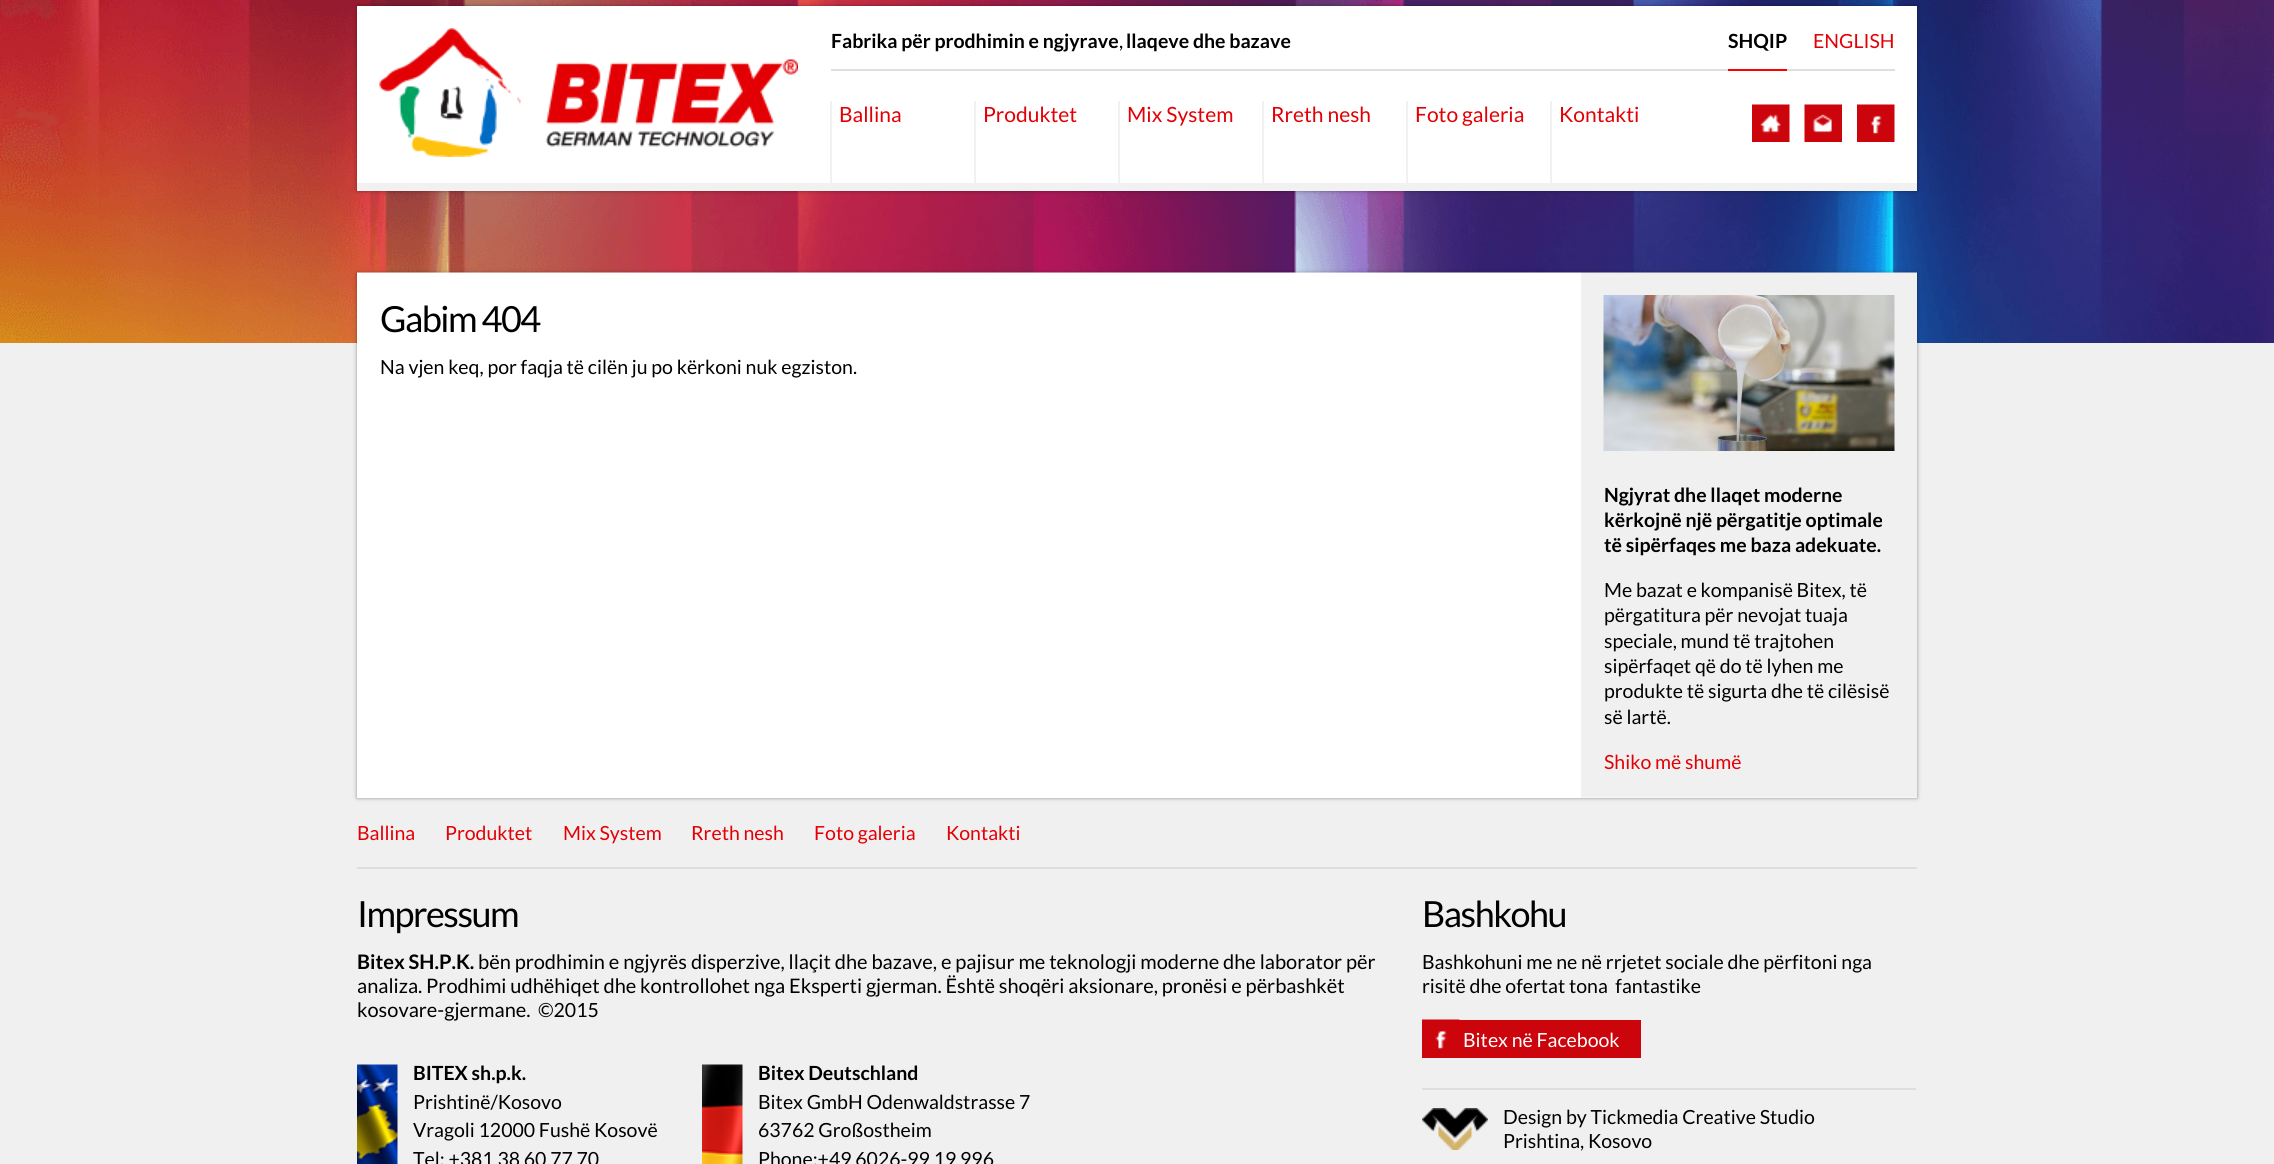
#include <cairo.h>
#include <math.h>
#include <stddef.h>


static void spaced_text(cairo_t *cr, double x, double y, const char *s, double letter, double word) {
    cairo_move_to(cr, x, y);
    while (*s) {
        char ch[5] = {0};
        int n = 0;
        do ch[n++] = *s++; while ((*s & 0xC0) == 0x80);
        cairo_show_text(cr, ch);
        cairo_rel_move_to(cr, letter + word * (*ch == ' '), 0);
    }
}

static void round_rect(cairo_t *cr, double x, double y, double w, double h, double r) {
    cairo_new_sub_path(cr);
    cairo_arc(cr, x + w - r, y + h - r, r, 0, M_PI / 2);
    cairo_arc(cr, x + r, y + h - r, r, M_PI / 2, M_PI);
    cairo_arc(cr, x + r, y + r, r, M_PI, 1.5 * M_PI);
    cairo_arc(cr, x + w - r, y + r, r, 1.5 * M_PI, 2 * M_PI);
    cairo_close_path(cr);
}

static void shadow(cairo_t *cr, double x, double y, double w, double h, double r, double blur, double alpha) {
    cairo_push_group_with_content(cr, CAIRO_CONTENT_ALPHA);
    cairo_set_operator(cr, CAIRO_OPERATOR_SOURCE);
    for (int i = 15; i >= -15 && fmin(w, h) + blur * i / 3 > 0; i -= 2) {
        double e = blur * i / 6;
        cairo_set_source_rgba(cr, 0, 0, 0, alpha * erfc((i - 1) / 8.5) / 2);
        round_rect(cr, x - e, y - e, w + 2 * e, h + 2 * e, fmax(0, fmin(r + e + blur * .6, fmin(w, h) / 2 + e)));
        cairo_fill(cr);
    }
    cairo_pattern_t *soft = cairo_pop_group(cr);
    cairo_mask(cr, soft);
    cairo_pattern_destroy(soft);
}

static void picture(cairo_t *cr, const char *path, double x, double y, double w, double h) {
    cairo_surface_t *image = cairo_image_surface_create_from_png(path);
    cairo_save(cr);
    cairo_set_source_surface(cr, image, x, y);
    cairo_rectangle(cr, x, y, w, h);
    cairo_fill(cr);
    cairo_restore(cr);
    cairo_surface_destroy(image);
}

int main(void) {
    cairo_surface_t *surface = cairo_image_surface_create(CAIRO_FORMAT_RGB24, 2274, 1164);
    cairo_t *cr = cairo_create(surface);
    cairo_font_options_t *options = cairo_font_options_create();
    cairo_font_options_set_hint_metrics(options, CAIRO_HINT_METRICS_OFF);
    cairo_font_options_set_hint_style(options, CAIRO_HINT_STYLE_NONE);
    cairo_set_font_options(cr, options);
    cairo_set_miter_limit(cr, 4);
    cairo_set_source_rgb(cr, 0.941, 0.941, 0.941);
    cairo_paint(cr);
    picture(cr, "img1.png", 0, 0, 2274, 343);
    cairo_set_source_rgb(cr, 0, 0, 0);
    shadow(cr, 357, 6, 1560, 185, 0, 2, 0.4);
    cairo_set_source_rgb(cr, 1, 1, 1);
    cairo_rectangle(cr, 357, 6, 1560, 177);
    cairo_fill(cr);
    cairo_set_source_rgb(cr, 0.945, 0.945, 0.945);
    cairo_rectangle(cr, 357, 183, 1560, 8);
    cairo_fill(cr);
    picture(cr, "img2.png", 379, 28, 419, 129);
    cairo_set_source_rgb(cr, 0.871, 0.871, 0.871);
    cairo_rectangle(cr, 831, 69, 1064, 2);
    cairo_fill(cr);
    cairo_select_font_face(cr, "Lato", CAIRO_FONT_SLANT_NORMAL, CAIRO_FONT_WEIGHT_BOLD);
    cairo_set_font_size(cr, 19.5);
    cairo_set_source_rgb(cr, 0, 0, 0);
    cairo_move_to(cr, 831, 48);
    cairo_show_text(cr, "Fabrika për prodhimin e ngjyrave");
    cairo_select_font_face(cr, "Lato", CAIRO_FONT_SLANT_NORMAL, CAIRO_FONT_WEIGHT_NORMAL);
    cairo_move_to(cr, 1119, 48);
    cairo_show_text(cr, ",");
    cairo_select_font_face(cr, "Lato", CAIRO_FONT_SLANT_NORMAL, CAIRO_FONT_WEIGHT_BOLD);
    cairo_move_to(cr, 1126, 48);
    cairo_show_text(cr, "llaqeve dhe bazave");
    cairo_set_source_rgb(cr, 1, 0, 0);
    cairo_rectangle(cr, 1728, 69, 59, 2);
    cairo_fill(cr);
    cairo_set_source_rgb(cr, 0, 0, 0);
    cairo_move_to(cr, 1728, 48);
    cairo_show_text(cr, "SHQIP");
    cairo_select_font_face(cr, "Lato", CAIRO_FONT_SLANT_NORMAL, CAIRO_FONT_WEIGHT_NORMAL);
    cairo_set_source_rgb(cr, 0.89, 0, 0.02);
    cairo_move_to(cr, 1813, 48);
    cairo_show_text(cr, "ENGLISH");
    cairo_set_source_rgb(cr, 0.945, 0.945, 0.945);
    cairo_rectangle(cr, 830, 101, 2, 82);
    cairo_fill(cr);
    cairo_set_font_size(cr, 21);
    cairo_set_source_rgb(cr, 0.89, 0, 0.02);
    cairo_move_to(cr, 839, 122);
    cairo_show_text(cr, "Ballina");
    cairo_set_source_rgb(cr, 0.945, 0.945, 0.945);
    cairo_rectangle(cr, 974, 101, 2, 82);
    cairo_fill(cr);
    cairo_set_source_rgb(cr, 0.89, 0, 0.02);
    cairo_move_to(cr, 983, 122);
    cairo_show_text(cr, "Produktet");
    cairo_set_source_rgb(cr, 0.945, 0.945, 0.945);
    cairo_rectangle(cr, 1118, 101, 2, 82);
    cairo_fill(cr);
    cairo_set_source_rgb(cr, 0.89, 0, 0.02);
    cairo_move_to(cr, 1127, 122);
    cairo_show_text(cr, "Mix System");
    cairo_set_source_rgb(cr, 0.945, 0.945, 0.945);
    cairo_rectangle(cr, 1262, 101, 2, 82);
    cairo_fill(cr);
    cairo_set_source_rgb(cr, 0.89, 0, 0.02);
    cairo_move_to(cr, 1271, 122);
    cairo_show_text(cr, "Rreth nesh");
    cairo_set_source_rgb(cr, 0.945, 0.945, 0.945);
    cairo_rectangle(cr, 1406, 101, 2, 82);
    cairo_fill(cr);
    cairo_set_source_rgb(cr, 0.89, 0, 0.02);
    cairo_move_to(cr, 1415, 122);
    cairo_show_text(cr, "Foto galeria");
    cairo_set_source_rgb(cr, 0.945, 0.945, 0.945);
    cairo_rectangle(cr, 1550, 101, 2, 82);
    cairo_fill(cr);
    cairo_set_source_rgb(cr, 0.89, 0, 0.02);
    cairo_move_to(cr, 1559, 122);
    cairo_show_text(cr, "Kontakti");
    picture(cr, "img3.png", 1752, 104, 38, 38);
    picture(cr, "img4.png", 1804, 104, 38, 38);
    picture(cr, "img5.png", 1857, 104, 38, 38);
    cairo_set_source_rgb(cr, 0, 0, 0);
    shadow(cr, 357, 273, 1560, 525, 0, 2, 0.4);
    cairo_set_source_rgb(cr, 1, 1, 1);
    cairo_rectangle(cr, 357, 797, 1560, 1);
    cairo_fill(cr);
    picture(cr, "img6.png", 357, 272, 1560, 526);
    cairo_set_font_size(cr, 36);
    cairo_set_source_rgb(cr, 0, 0, 0);
    spaced_text(cr, 380, 332, "Gabim 404", -1.5, 0);
    cairo_set_font_size(cr, 19.5);
    cairo_move_to(cr, 380, 374);
    cairo_show_text(cr, "Na vjen keq, por faqja të cilën ju po kërkoni nuk egziston.");
    picture(cr, "img7.png", 1603, 295, 292, 156);
    cairo_select_font_face(cr, "Lato", CAIRO_FONT_SLANT_NORMAL, CAIRO_FONT_WEIGHT_BOLD);
    cairo_move_to(cr, 1604, 502);
    cairo_show_text(cr, "Ngjyrat dhe llaqet moderne");
    cairo_move_to(cr, 1604, 527);
    cairo_show_text(cr, "kërkojnë një përgatitje optimale");
    cairo_move_to(cr, 1604, 552);
    cairo_show_text(cr, "të sipërfaqes me baza adekuate.");
    cairo_select_font_face(cr, "Lato", CAIRO_FONT_SLANT_NORMAL, CAIRO_FONT_WEIGHT_NORMAL);
    cairo_move_to(cr, 1604, 597);
    cairo_show_text(cr, "Me bazat e kompanisë Bitex, të");
    cairo_move_to(cr, 1604, 622);
    cairo_show_text(cr, "përgatitura për nevojat tuaja");
    cairo_move_to(cr, 1604, 648);
    cairo_show_text(cr, "speciale, mund të trajtohen");
    cairo_move_to(cr, 1604, 673);
    cairo_show_text(cr, "sipërfaqet që do të lyhen me");
    cairo_move_to(cr, 1604, 698);
    cairo_show_text(cr, "produkte të sigurta dhe të cilësisë");
    cairo_move_to(cr, 1604, 724);
    cairo_show_text(cr, "së lartë.");
    cairo_set_source_rgb(cr, 0.89, 0, 0.02);
    cairo_move_to(cr, 1604, 769);
    cairo_show_text(cr, "Shiko më shumë");
    cairo_set_source_rgb(cr, 0.871, 0.871, 0.871);
    cairo_rectangle(cr, 357, 867, 1560, 2);
    cairo_fill(cr);
    cairo_set_source_rgb(cr, 0.89, 0, 0.02);
    cairo_move_to(cr, 357, 840);
    cairo_show_text(cr, "Ballina");
    cairo_move_to(cr, 445, 840);
    cairo_show_text(cr, "Produktet");
    cairo_move_to(cr, 563, 840);
    cairo_show_text(cr, "Mix System");
    cairo_move_to(cr, 691, 840);
    cairo_show_text(cr, "Rreth nesh");
    cairo_move_to(cr, 814, 840);
    cairo_show_text(cr, "Foto galeria");
    cairo_move_to(cr, 946, 840);
    cairo_show_text(cr, "Kontakti");
    cairo_set_font_size(cr, 36);
    cairo_set_source_rgb(cr, 0, 0, 0);
    spaced_text(cr, 357, 927, "Impressum", -1.5, 0);
    cairo_select_font_face(cr, "Lato", CAIRO_FONT_SLANT_NORMAL, CAIRO_FONT_WEIGHT_BOLD);
    cairo_set_font_size(cr, 20);
    cairo_move_to(cr, 357, 969);
    cairo_show_text(cr, "Bitex SH.P.K.");
    cairo_select_font_face(cr, "Lato", CAIRO_FONT_SLANT_NORMAL, CAIRO_FONT_WEIGHT_NORMAL);
    cairo_move_to(cr, 478, 969);
    cairo_show_text(cr, "bën prodhimin e ngjyrës disperzive, llaçit dhe bazave, e pajisur me teknologji moderne dhe laborator për");
    cairo_move_to(cr, 357, 993);
    cairo_show_text(cr, "analiza. Prodhimi udhëhiqet dhe kontrollohet nga Eksperti gjerman. Është shoqëri aksionare, pronësi e përbashkët");
    cairo_move_to(cr, 357, 1017);
    cairo_show_text(cr, "kosovare-gjermane.");
    cairo_set_font_size(cr, 19.5);
    cairo_move_to(cr, 538, 1017);
    cairo_show_text(cr, "©2015");
    picture(cr, "img8.png", 357, 1064, 41, 100);
    cairo_select_font_face(cr, "Lato", CAIRO_FONT_SLANT_NORMAL, CAIRO_FONT_WEIGHT_BOLD);
    cairo_move_to(cr, 413, 1080);
    cairo_show_text(cr, "BITEX sh.p.k.");
    cairo_select_font_face(cr, "Lato", CAIRO_FONT_SLANT_NORMAL, CAIRO_FONT_WEIGHT_NORMAL);
    cairo_move_to(cr, 413, 1109);
    cairo_show_text(cr, "Prishtinë/Kosovo");
    cairo_move_to(cr, 413, 1137);
    cairo_show_text(cr, "Vragoli 12000 Fushë Kosovë");
    cairo_move_to(cr, 413, 1166);
    cairo_show_text(cr, "Tel: +381 38 60 77 70");
    picture(cr, "img9.png", 702, 1064, 41, 100);
    cairo_select_font_face(cr, "Lato", CAIRO_FONT_SLANT_NORMAL, CAIRO_FONT_WEIGHT_BOLD);
    cairo_move_to(cr, 758, 1080);
    cairo_show_text(cr, "Bitex Deutschland");
    cairo_select_font_face(cr, "Lato", CAIRO_FONT_SLANT_NORMAL, CAIRO_FONT_WEIGHT_NORMAL);
    cairo_move_to(cr, 758, 1109);
    cairo_show_text(cr, "Bitex GmbH Odenwaldstrasse 7");
    cairo_move_to(cr, 758, 1137);
    cairo_show_text(cr, "63762 Großostheim");
    cairo_move_to(cr, 758, 1166);
    cairo_show_text(cr, "Phone:+49 6026-99 19 996");
    cairo_set_font_size(cr, 36);
    spaced_text(cr, 1422, 927, "Bashkohu", -1.5, 0);
    cairo_set_font_size(cr, 19.5);
    cairo_move_to(cr, 1422, 969);
    cairo_show_text(cr, "Bashkohuni me ne në rrjetet sociale dhe përfitoni nga");
    cairo_move_to(cr, 1422, 993);
    cairo_show_text(cr, "risitë dhe ofertat tona  fantastike");
    cairo_set_source_rgb(cr, 0.8, 0.016, 0.043);
    cairo_rectangle(cr, 1422, 1020, 219, 38);
    cairo_fill(cr);
    picture(cr, "img10.png", 1422, 1019, 38, 31);
    cairo_set_source_rgb(cr, 1, 1, 1);
    cairo_move_to(cr, 1463, 1047);
    cairo_show_text(cr, "Bitex në Facebook");
    cairo_set_source_rgb(cr, 0.871, 0.871, 0.871);
    cairo_rectangle(cr, 1422, 1088, 494, 2);
    cairo_fill(cr);
    picture(cr, "img11.png", 1422, 1108, 66, 42);
    cairo_set_source_rgb(cr, 0, 0, 0);
    cairo_move_to(cr, 1503, 1124);
    cairo_show_text(cr, "Design by Tickmedia Creative Studio");
    cairo_move_to(cr, 1503, 1148);
    cairo_show_text(cr, "Prishtina, Kosovo");
    cairo_surface_write_to_png(surface, "page.png");
    cairo_font_options_destroy(options);
    cairo_destroy(cr);
    cairo_surface_destroy(surface);
    return 0;
}
